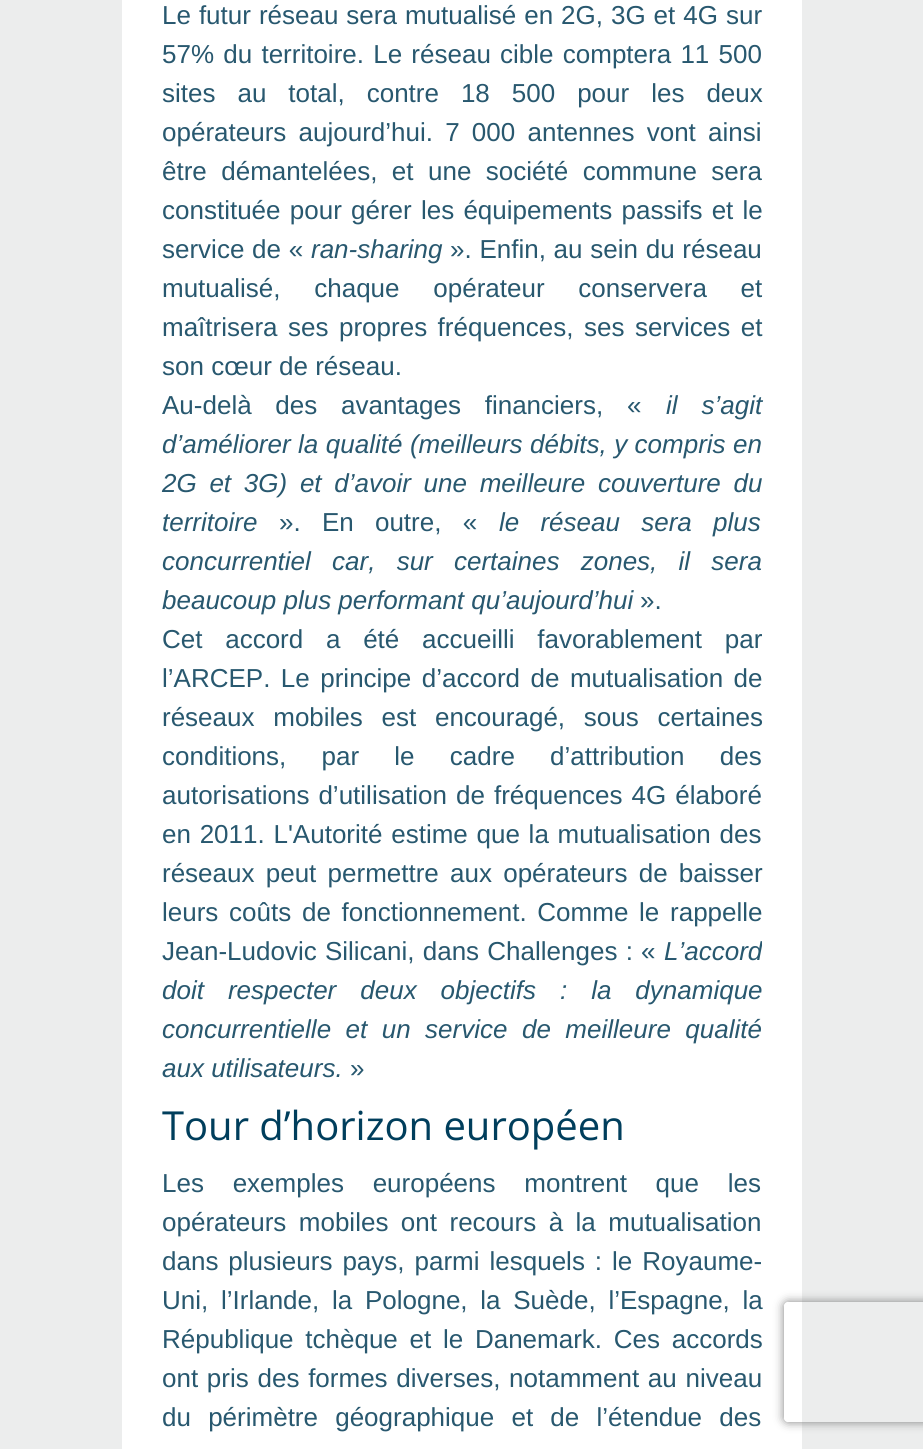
#include <cairo.h>
#include <math.h>
#include <stddef.h>


static void spaced_text(cairo_t *cr, double x, double y, const char *s, double letter, double word) {
    cairo_move_to(cr, x, y);
    while (*s) {
        char ch[5] = {0};
        int n = 0;
        do ch[n++] = *s++; while ((*s & 0xC0) == 0x80);
        cairo_show_text(cr, ch);
        cairo_rel_move_to(cr, letter + word * (*ch == ' '), 0);
    }
}

static void round_rect(cairo_t *cr, double x, double y, double w, double h, double r) {
    cairo_new_sub_path(cr);
    cairo_arc(cr, x + w - r, y + h - r, r, 0, M_PI / 2);
    cairo_arc(cr, x + r, y + h - r, r, M_PI / 2, M_PI);
    cairo_arc(cr, x + r, y + r, r, M_PI, 1.5 * M_PI);
    cairo_arc(cr, x + w - r, y + r, r, 1.5 * M_PI, 2 * M_PI);
    cairo_close_path(cr);
}

static void shadow(cairo_t *cr, double x, double y, double w, double h, double r, double blur, double alpha) {
    cairo_push_group_with_content(cr, CAIRO_CONTENT_ALPHA);
    cairo_set_operator(cr, CAIRO_OPERATOR_SOURCE);
    for (int i = 15; i >= -15 && fmin(w, h) + blur * i / 3 > 0; i -= 2) {
        double e = blur * i / 6;
        cairo_set_source_rgba(cr, 0, 0, 0, alpha * erfc((i - 1) / 8.5) / 2);
        round_rect(cr, x - e, y - e, w + 2 * e, h + 2 * e, fmax(0, fmin(r + e + blur * .6, fmin(w, h) / 2 + e)));
        cairo_fill(cr);
    }
    cairo_pattern_t *soft = cairo_pop_group(cr);
    cairo_mask(cr, soft);
    cairo_pattern_destroy(soft);
}

int main(void) {
    cairo_surface_t *surface = cairo_image_surface_create(CAIRO_FORMAT_RGB24, 923, 1449);
    cairo_t *cr = cairo_create(surface);
    cairo_font_options_t *options = cairo_font_options_create();
    cairo_font_options_set_hint_metrics(options, CAIRO_HINT_METRICS_OFF);
    cairo_font_options_set_hint_style(options, CAIRO_HINT_STYLE_NONE);
    cairo_set_font_options(cr, options);
    cairo_set_miter_limit(cr, 4);
    cairo_set_source_rgb(cr, 0.925, 0.929, 0.929);
    cairo_paint(cr);
    cairo_set_source_rgb(cr, 1, 1, 1);
    cairo_rectangle(cr, 122, 0, 680, 1449);
    cairo_fill(cr);
    cairo_select_font_face(cr, "Liberation Sans", CAIRO_FONT_SLANT_NORMAL, CAIRO_FONT_WEIGHT_NORMAL);
    cairo_set_font_size(cr, 26);
    cairo_set_source_rgb(cr, 0.157, 0.345, 0.435);
    spaced_text(cr, 162, 24, "Le futur réseau sera mutualisé en 2G, 3G et 4G sur", 0, 0.75);
    spaced_text(cr, 162, 63, "57% du territoire. Le réseau cible comptera 11 500", 0, 2);
    spaced_text(cr, 162, 102, "sites au total, contre 18 500 pour les deux", 0, 14.75);
    spaced_text(cr, 162, 141, "opérateurs aujourd’hui. 7 000 antennes vont ainsi", 0, 5);
    spaced_text(cr, 162, 180, "être démantelées, et une société commune sera", 0, 7.25);
    spaced_text(cr, 162, 219, "constituée pour gérer les équipements passifs et le", 0, 2);
    spaced_text(cr, 162, 258, "service de «", 0, 0.5);
    cairo_select_font_face(cr, "Liberation Sans", CAIRO_FONT_SLANT_ITALIC, CAIRO_FONT_WEIGHT_NORMAL);
    cairo_move_to(cr, 311, 258);
    cairo_show_text(cr, "ran-sharing");
    cairo_select_font_face(cr, "Liberation Sans", CAIRO_FONT_SLANT_NORMAL, CAIRO_FONT_WEIGHT_NORMAL);
    spaced_text(cr, 450, 258, "». Enfin, au sein du réseau", 0, 0.5);
    spaced_text(cr, 162, 297, "mutualisé, chaque opérateur conservera et", 0, 26.5);
    spaced_text(cr, 162, 336, "maîtrisera ses propres fréquences, ses services et", 0, 3.25);
    cairo_move_to(cr, 162, 375);
    cairo_show_text(cr, "son cœur de réseau.");
    spaced_text(cr, 162, 414, "Au-delà des avantages financiers, «", 0, 16.5);
    cairo_select_font_face(cr, "Liberation Sans", CAIRO_FONT_SLANT_ITALIC, CAIRO_FONT_WEIGHT_NORMAL);
    spaced_text(cr, 666, 414, "il s’agit", 0, 16.75);
    spaced_text(cr, 162, 453, "d’améliorer la qualité (meilleurs débits, y compris en", 0, 0.25);
    spaced_text(cr, 162, 492, "2G et 3G) et d’avoir une meilleure couverture du", 0, 5.5);
    cairo_move_to(cr, 162, 531);
    cairo_show_text(cr, "territoire");
    cairo_select_font_face(cr, "Liberation Sans", CAIRO_FONT_SLANT_NORMAL, CAIRO_FONT_WEIGHT_NORMAL);
    spaced_text(cr, 279, 531, "». En outre, «", 0, 14);
    cairo_select_font_face(cr, "Liberation Sans", CAIRO_FONT_SLANT_ITALIC, CAIRO_FONT_WEIGHT_NORMAL);
    spaced_text(cr, 499, 531, "le réseau sera plus", 0, 14);
    spaced_text(cr, 162, 570, "concurrentiel car, sur certaines zones, il sera", 0, 14);
    cairo_move_to(cr, 162, 609);
    cairo_show_text(cr, "beaucoup plus performant qu’aujourd’hui");
    cairo_select_font_face(cr, "Liberation Sans", CAIRO_FONT_SLANT_NORMAL, CAIRO_FONT_WEIGHT_NORMAL);
    cairo_move_to(cr, 640, 609);
    cairo_show_text(cr, "».");
    spaced_text(cr, 162, 648, "Cet accord a été accueilli favorablement par", 0, 15.5);
    spaced_text(cr, 162, 687, "l’ARCEP. Le principe d’accord de mutualisation de", 0, 3.25);
    spaced_text(cr, 162, 726, "réseaux mobiles est encouragé, sous certaines", 0, 11.5);
    spaced_text(cr, 162, 765, "conditions, par le cadre d’attribution des", 0, 28);
    spaced_text(cr, 162, 804, "autorisations d’utilisation de fréquences 4G élaboré", 0, 1.75);
    spaced_text(cr, 162, 843, "en 2011. L'Autorité estime que la mutualisation des", 0, 1.5);
    spaced_text(cr, 162, 882, "réseaux peut permettre aux opérateurs de baisser", 0, 4);
    spaced_text(cr, 162, 921, "leurs coûts de fonctionnement. Comme le rappelle", 0, 3.5);
    spaced_text(cr, 162, 960, "Jean-Ludovic Silicani, dans Challenges : «", 0, 1);
    cairo_save(cr);
    cairo_rectangle(cr, 162, 0, 600, 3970);
    cairo_clip(cr);
    cairo_select_font_face(cr, "Liberation Sans", CAIRO_FONT_SLANT_ITALIC, CAIRO_FONT_WEIGHT_NORMAL);
    cairo_move_to(cr, 664, 960);
    cairo_show_text(cr, "L’accord");
    cairo_restore(cr);
    cairo_select_font_face(cr, "Liberation Sans", CAIRO_FONT_SLANT_ITALIC, CAIRO_FONT_WEIGHT_NORMAL);
    spaced_text(cr, 162, 999, "doit respecter deux objectifs : la dynamique", 0, 16.75);
    spaced_text(cr, 162, 1038, "concurrentielle et un service de meilleure qualité", 0, 7.25);
    cairo_move_to(cr, 162, 1077);
    cairo_show_text(cr, "aux utilisateurs.");
    cairo_select_font_face(cr, "Liberation Sans", CAIRO_FONT_SLANT_NORMAL, CAIRO_FONT_WEIGHT_NORMAL);
    cairo_move_to(cr, 350, 1077);
    cairo_show_text(cr, "»");
    cairo_select_font_face(cr, "Open Sans", CAIRO_FONT_SLANT_NORMAL, CAIRO_FONT_WEIGHT_NORMAL);
    cairo_set_font_size(cr, 40);
    cairo_set_source_rgb(cr, 0, 0.243, 0.361);
    cairo_move_to(cr, 162, 1140);
    cairo_show_text(cr, "Tour d’horizon européen");
    cairo_select_font_face(cr, "Liberation Sans", CAIRO_FONT_SLANT_NORMAL, CAIRO_FONT_WEIGHT_NORMAL);
    cairo_set_font_size(cr, 26);
    cairo_set_source_rgb(cr, 0.157, 0.345, 0.435);
    spaced_text(cr, 162, 1192, "Les exemples européens montrent que les", 0, 21.5);
    spaced_text(cr, 162, 1231, "opérateurs mobiles ont recours à la mutualisation", 0, 5.25);
    spaced_text(cr, 162, 1270, "dans plusieurs pays, parmi lesquels : le Royaume-", 0, 2.75);
    spaced_text(cr, 162, 1309, "Uni, l’Irlande, la Pologne, la Suède, l’Espagne, la", 0, 5.5);
    spaced_text(cr, 162, 1348, "République tchèque et le Danemark. Ces accords", 0, 4.5);
    spaced_text(cr, 162, 1387, "ont pris des formes diverses, notamment au niveau", 0, 1.5);
    spaced_text(cr, 162, 1426, "du périmètre géographique et de l’étendue des", 0, 10);
    cairo_save(cr);
    cairo_set_fill_rule(cr, CAIRO_FILL_RULE_EVEN_ODD);
    cairo_new_path(cr);
    cairo_move_to(cr, 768, 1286);
    cairo_line_to(cr, 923, 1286);
    cairo_line_to(cr, 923, 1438);
    cairo_line_to(cr, 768, 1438);
    cairo_close_path(cr);
    cairo_move_to(cr, 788, 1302);
    cairo_line_to(cr, 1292, 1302);
    cairo_curve_to(cr, 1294, 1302, 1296, 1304, 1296, 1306);
    cairo_line_to(cr, 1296, 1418);
    cairo_curve_to(cr, 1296, 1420, 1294, 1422, 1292, 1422);
    cairo_line_to(cr, 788, 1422);
    cairo_curve_to(cr, 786, 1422, 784, 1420, 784, 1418);
    cairo_line_to(cr, 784, 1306);
    cairo_curve_to(cr, 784, 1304, 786, 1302, 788, 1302);
    cairo_close_path(cr);
    cairo_clip(cr);
    cairo_set_source_rgb(cr, 0.502, 0.502, 0.502);
    shadow(cr, 784, 1302, 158, 120, 4, 5, 1);
    cairo_restore(cr);
    cairo_surface_write_to_png(surface, "page.png");
    cairo_font_options_destroy(options);
    cairo_destroy(cr);
    cairo_surface_destroy(surface);
    return 0;
}
